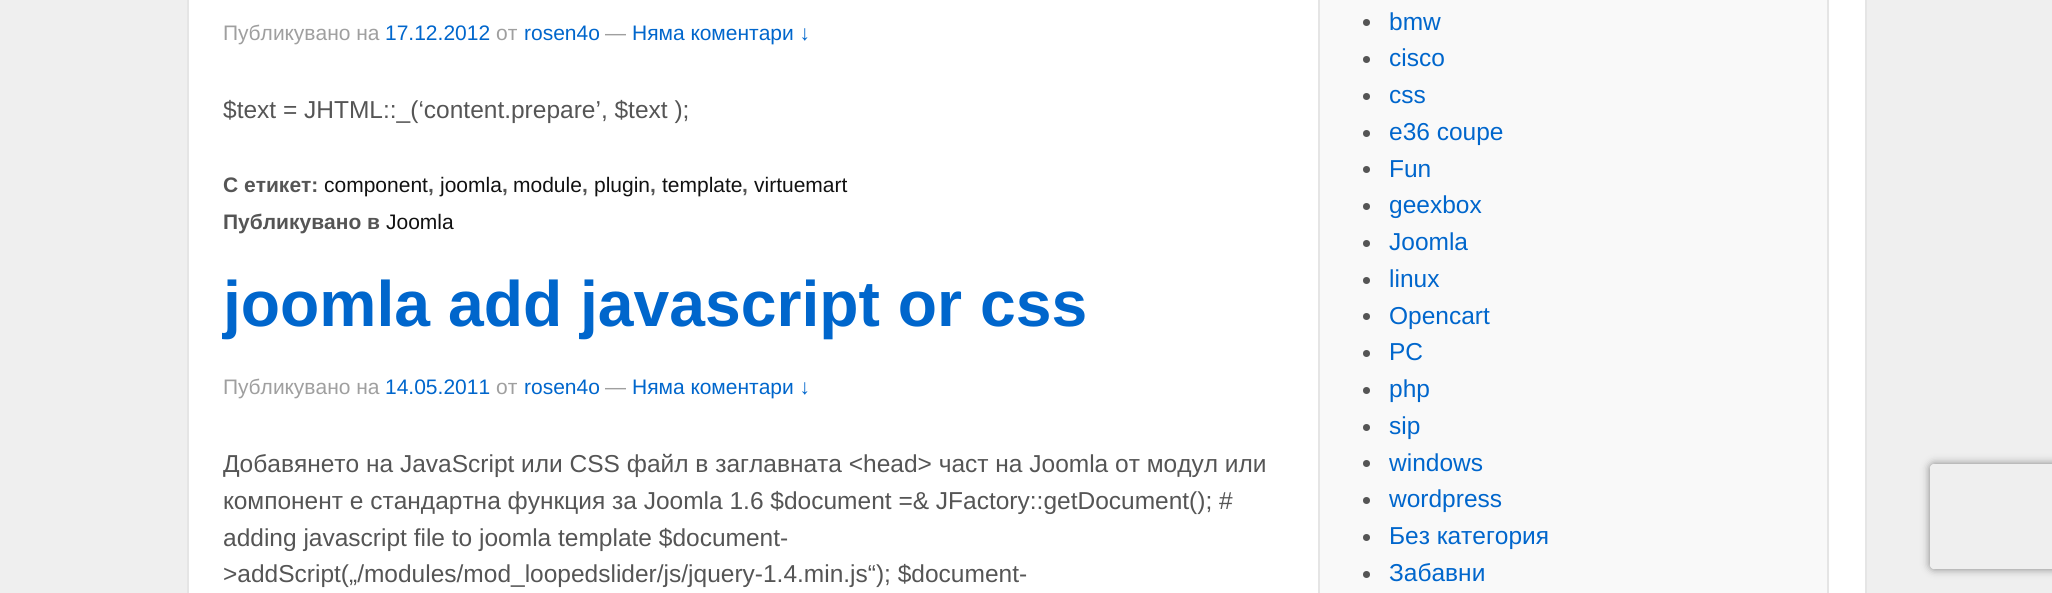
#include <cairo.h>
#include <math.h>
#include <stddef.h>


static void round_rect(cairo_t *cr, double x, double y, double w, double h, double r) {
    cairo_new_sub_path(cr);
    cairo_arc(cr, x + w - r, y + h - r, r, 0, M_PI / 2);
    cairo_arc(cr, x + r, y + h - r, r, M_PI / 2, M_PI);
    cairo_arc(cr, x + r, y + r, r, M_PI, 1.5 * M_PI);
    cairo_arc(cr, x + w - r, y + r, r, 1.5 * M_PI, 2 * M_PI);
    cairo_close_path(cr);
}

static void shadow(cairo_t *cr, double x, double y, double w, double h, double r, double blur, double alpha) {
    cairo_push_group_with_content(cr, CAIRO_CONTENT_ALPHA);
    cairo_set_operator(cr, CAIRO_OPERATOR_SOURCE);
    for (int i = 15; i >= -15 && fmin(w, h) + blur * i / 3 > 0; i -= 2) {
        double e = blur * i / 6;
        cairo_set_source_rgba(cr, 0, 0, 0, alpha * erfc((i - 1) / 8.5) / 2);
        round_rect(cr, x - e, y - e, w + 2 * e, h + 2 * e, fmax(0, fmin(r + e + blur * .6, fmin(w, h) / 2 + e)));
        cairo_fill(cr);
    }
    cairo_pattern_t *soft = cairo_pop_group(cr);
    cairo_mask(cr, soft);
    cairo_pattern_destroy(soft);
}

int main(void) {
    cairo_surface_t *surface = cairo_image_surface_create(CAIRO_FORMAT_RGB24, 2052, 593);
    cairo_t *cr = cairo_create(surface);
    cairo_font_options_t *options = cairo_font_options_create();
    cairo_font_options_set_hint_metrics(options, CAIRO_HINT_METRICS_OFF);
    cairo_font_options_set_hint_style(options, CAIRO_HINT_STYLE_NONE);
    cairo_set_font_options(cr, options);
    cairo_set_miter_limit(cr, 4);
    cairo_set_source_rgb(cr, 0.937, 0.937, 0.937);
    cairo_paint(cr);
    cairo_set_source_rgb(cr, 1, 1, 1);
    cairo_rectangle(cr, 188, -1, 1678, 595);
    cairo_fill_preserve(cr);
    cairo_set_source_rgb(cr, 0.898, 0.898, 0.898);
    cairo_stroke(cr);
    cairo_select_font_face(cr, "Liberation Sans", CAIRO_FONT_SLANT_NORMAL, CAIRO_FONT_WEIGHT_NORMAL);
    cairo_set_font_size(cr, 21);
    cairo_set_source_rgb(cr, 0.624, 0.624, 0.624);
    cairo_move_to(cr, 223, 40);
    cairo_show_text(cr, "Публикувано на");
    cairo_set_source_rgb(cr, 0, 0.4, 0.8);
    cairo_move_to(cr, 385, 40);
    cairo_show_text(cr, "17.12.2012");
    cairo_set_source_rgb(cr, 0.624, 0.624, 0.624);
    cairo_move_to(cr, 496, 40);
    cairo_show_text(cr, "от");
    cairo_set_source_rgb(cr, 0, 0.4, 0.8);
    cairo_move_to(cr, 524, 40);
    cairo_show_text(cr, "rosen4o");
    cairo_set_source_rgb(cr, 0.624, 0.624, 0.624);
    cairo_move_to(cr, 605, 40);
    cairo_show_text(cr, "—");
    cairo_set_source_rgb(cr, 0, 0.4, 0.8);
    cairo_move_to(cr, 632, 40);
    cairo_show_text(cr, "Няма коментари ↓");
    cairo_set_font_size(cr, 24.5);
    cairo_set_source_rgb(cr, 0.333, 0.333, 0.333);
    cairo_move_to(cr, 223, 118);
    cairo_show_text(cr, "$text = JHTML::_(‘content.prepare’, $text );");
    cairo_select_font_face(cr, "Liberation Sans", CAIRO_FONT_SLANT_NORMAL, CAIRO_FONT_WEIGHT_BOLD);
    cairo_set_font_size(cr, 21);
    cairo_move_to(cr, 223, 192);
    cairo_show_text(cr, "С етикет:");
    cairo_select_font_face(cr, "Liberation Sans", CAIRO_FONT_SLANT_NORMAL, CAIRO_FONT_WEIGHT_NORMAL);
    cairo_set_source_rgb(cr, 0.067, 0.067, 0.067);
    cairo_move_to(cr, 324, 192);
    cairo_show_text(cr, "component");
    cairo_select_font_face(cr, "Liberation Sans", CAIRO_FONT_SLANT_NORMAL, CAIRO_FONT_WEIGHT_BOLD);
    cairo_set_source_rgb(cr, 0.333, 0.333, 0.333);
    cairo_move_to(cr, 428, 192);
    cairo_show_text(cr, ",");
    cairo_select_font_face(cr, "Liberation Sans", CAIRO_FONT_SLANT_NORMAL, CAIRO_FONT_WEIGHT_NORMAL);
    cairo_set_source_rgb(cr, 0.067, 0.067, 0.067);
    cairo_move_to(cr, 440, 192);
    cairo_show_text(cr, "joomla");
    cairo_select_font_face(cr, "Liberation Sans", CAIRO_FONT_SLANT_NORMAL, CAIRO_FONT_WEIGHT_BOLD);
    cairo_set_source_rgb(cr, 0.333, 0.333, 0.333);
    cairo_move_to(cr, 502, 192);
    cairo_show_text(cr, ",");
    cairo_select_font_face(cr, "Liberation Sans", CAIRO_FONT_SLANT_NORMAL, CAIRO_FONT_WEIGHT_NORMAL);
    cairo_set_source_rgb(cr, 0.067, 0.067, 0.067);
    cairo_move_to(cr, 513, 192);
    cairo_show_text(cr, "module");
    cairo_select_font_face(cr, "Liberation Sans", CAIRO_FONT_SLANT_NORMAL, CAIRO_FONT_WEIGHT_BOLD);
    cairo_set_source_rgb(cr, 0.333, 0.333, 0.333);
    cairo_move_to(cr, 582, 192);
    cairo_show_text(cr, ",");
    cairo_select_font_face(cr, "Liberation Sans", CAIRO_FONT_SLANT_NORMAL, CAIRO_FONT_WEIGHT_NORMAL);
    cairo_set_source_rgb(cr, 0.067, 0.067, 0.067);
    cairo_move_to(cr, 594, 192);
    cairo_show_text(cr, "plugin");
    cairo_select_font_face(cr, "Liberation Sans", CAIRO_FONT_SLANT_NORMAL, CAIRO_FONT_WEIGHT_BOLD);
    cairo_set_source_rgb(cr, 0.333, 0.333, 0.333);
    cairo_move_to(cr, 650, 192);
    cairo_show_text(cr, ",");
    cairo_select_font_face(cr, "Liberation Sans", CAIRO_FONT_SLANT_NORMAL, CAIRO_FONT_WEIGHT_NORMAL);
    cairo_set_source_rgb(cr, 0.067, 0.067, 0.067);
    cairo_move_to(cr, 662, 192);
    cairo_show_text(cr, "template");
    cairo_select_font_face(cr, "Liberation Sans", CAIRO_FONT_SLANT_NORMAL, CAIRO_FONT_WEIGHT_BOLD);
    cairo_set_source_rgb(cr, 0.333, 0.333, 0.333);
    cairo_move_to(cr, 742, 192);
    cairo_show_text(cr, ",");
    cairo_select_font_face(cr, "Liberation Sans", CAIRO_FONT_SLANT_NORMAL, CAIRO_FONT_WEIGHT_NORMAL);
    cairo_set_source_rgb(cr, 0.067, 0.067, 0.067);
    cairo_move_to(cr, 754, 192);
    cairo_show_text(cr, "virtuemart");
    cairo_select_font_face(cr, "Liberation Sans", CAIRO_FONT_SLANT_NORMAL, CAIRO_FONT_WEIGHT_BOLD);
    cairo_set_source_rgb(cr, 0.333, 0.333, 0.333);
    cairo_move_to(cr, 223, 229);
    cairo_show_text(cr, "Публикувано в");
    cairo_select_font_face(cr, "Liberation Sans", CAIRO_FONT_SLANT_NORMAL, CAIRO_FONT_WEIGHT_NORMAL);
    cairo_set_source_rgb(cr, 0.067, 0.067, 0.067);
    cairo_move_to(cr, 386, 229);
    cairo_show_text(cr, "Joomla");
    cairo_select_font_face(cr, "Liberation Sans", CAIRO_FONT_SLANT_NORMAL, CAIRO_FONT_WEIGHT_BOLD);
    cairo_set_font_size(cr, 64.25);
    cairo_set_source_rgb(cr, 0, 0.4, 0.8);
    cairo_move_to(cr, 223, 326);
    cairo_show_text(cr, "joomla add javascript or css");
    cairo_select_font_face(cr, "Liberation Sans", CAIRO_FONT_SLANT_NORMAL, CAIRO_FONT_WEIGHT_NORMAL);
    cairo_set_font_size(cr, 21);
    cairo_set_source_rgb(cr, 0.624, 0.624, 0.624);
    cairo_move_to(cr, 223, 394);
    cairo_show_text(cr, "Публикувано на");
    cairo_set_source_rgb(cr, 0, 0.4, 0.8);
    cairo_move_to(cr, 385, 394);
    cairo_show_text(cr, "14.05.2011");
    cairo_set_source_rgb(cr, 0.624, 0.624, 0.624);
    cairo_move_to(cr, 496, 394);
    cairo_show_text(cr, "от");
    cairo_set_source_rgb(cr, 0, 0.4, 0.8);
    cairo_move_to(cr, 524, 394);
    cairo_show_text(cr, "rosen4o");
    cairo_set_source_rgb(cr, 0.624, 0.624, 0.624);
    cairo_move_to(cr, 605, 394);
    cairo_show_text(cr, "—");
    cairo_set_source_rgb(cr, 0, 0.4, 0.8);
    cairo_move_to(cr, 632, 394);
    cairo_show_text(cr, "Няма коментари ↓");
    cairo_set_font_size(cr, 24.5);
    cairo_set_source_rgb(cr, 0.333, 0.333, 0.333);
    cairo_move_to(cr, 223, 472);
    cairo_show_text(cr, "Добавянето на JavaScript или CSS файл в заглавната <head> част на Joomla от модул или");
    cairo_move_to(cr, 223, 509);
    cairo_show_text(cr, "компонент е стандартна функция за Joomla 1.6 $document =& JFactory::getDocument(); #");
    cairo_move_to(cr, 223, 546);
    cairo_show_text(cr, "adding javascript file to joomla template $document-");
    cairo_move_to(cr, 223, 582);
    cairo_show_text(cr, ">addScript(„/modules/mod_loopedslider/js/jquery-1.4.min.js“); $document-");
    cairo_set_source_rgb(cr, 0.976, 0.976, 0.976);
    cairo_rectangle(cr, 1319, -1, 509, 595);
    cairo_fill_preserve(cr);
    cairo_set_source_rgb(cr, 0.898, 0.898, 0.898);
    cairo_stroke(cr);
    cairo_set_source_rgb(cr, 0.333, 0.333, 0.333);
    cairo_arc(cr, 1366.5, 22.5, 3.5, 0, 2 * M_PI);
    cairo_fill(cr);
    cairo_set_source_rgb(cr, 0, 0.4, 0.8);
    cairo_move_to(cr, 1389, 30);
    cairo_show_text(cr, "bmw");
    cairo_set_source_rgb(cr, 0.333, 0.333, 0.333);
    cairo_new_path(cr);
    cairo_arc(cr, 1366.5, 59.5, 3.5, 0, 2 * M_PI);
    cairo_fill(cr);
    cairo_set_source_rgb(cr, 0, 0.4, 0.8);
    cairo_move_to(cr, 1389, 66);
    cairo_show_text(cr, "cisco");
    cairo_set_source_rgb(cr, 0.333, 0.333, 0.333);
    cairo_new_path(cr);
    cairo_arc(cr, 1366.5, 96.5, 3.5, 0, 2 * M_PI);
    cairo_fill(cr);
    cairo_set_source_rgb(cr, 0, 0.4, 0.8);
    cairo_move_to(cr, 1389, 103);
    cairo_show_text(cr, "css");
    cairo_set_source_rgb(cr, 0.333, 0.333, 0.333);
    cairo_new_path(cr);
    cairo_arc(cr, 1366.5, 133.5, 3.5, 0, 2 * M_PI);
    cairo_fill(cr);
    cairo_set_source_rgb(cr, 0, 0.4, 0.8);
    cairo_move_to(cr, 1389, 140);
    cairo_show_text(cr, "e36 coupe");
    cairo_set_source_rgb(cr, 0.333, 0.333, 0.333);
    cairo_new_path(cr);
    cairo_arc(cr, 1366.5, 169.5, 3.5, 0, 2 * M_PI);
    cairo_fill(cr);
    cairo_set_source_rgb(cr, 0, 0.4, 0.8);
    cairo_move_to(cr, 1389, 177);
    cairo_show_text(cr, "Fun");
    cairo_set_source_rgb(cr, 0.333, 0.333, 0.333);
    cairo_new_path(cr);
    cairo_arc(cr, 1366.5, 206.5, 3.5, 0, 2 * M_PI);
    cairo_fill(cr);
    cairo_set_source_rgb(cr, 0, 0.4, 0.8);
    cairo_move_to(cr, 1389, 213);
    cairo_show_text(cr, "geexbox");
    cairo_set_source_rgb(cr, 0.333, 0.333, 0.333);
    cairo_new_path(cr);
    cairo_arc(cr, 1366.5, 243.5, 3.5, 0, 2 * M_PI);
    cairo_fill(cr);
    cairo_set_source_rgb(cr, 0, 0.4, 0.8);
    cairo_move_to(cr, 1389, 250);
    cairo_show_text(cr, "Joomla");
    cairo_set_source_rgb(cr, 0.333, 0.333, 0.333);
    cairo_new_path(cr);
    cairo_arc(cr, 1366.5, 280.5, 3.5, 0, 2 * M_PI);
    cairo_fill(cr);
    cairo_set_source_rgb(cr, 0, 0.4, 0.8);
    cairo_move_to(cr, 1389, 287);
    cairo_show_text(cr, "linux");
    cairo_set_source_rgb(cr, 0.333, 0.333, 0.333);
    cairo_new_path(cr);
    cairo_arc(cr, 1366.5, 316.5, 3.5, 0, 2 * M_PI);
    cairo_fill(cr);
    cairo_set_source_rgb(cr, 0, 0.4, 0.8);
    cairo_move_to(cr, 1389, 324);
    cairo_show_text(cr, "Opencart");
    cairo_set_source_rgb(cr, 0.333, 0.333, 0.333);
    cairo_new_path(cr);
    cairo_arc(cr, 1366.5, 353.5, 3.5, 0, 2 * M_PI);
    cairo_fill(cr);
    cairo_set_source_rgb(cr, 0, 0.4, 0.8);
    cairo_move_to(cr, 1389, 360);
    cairo_show_text(cr, "PC");
    cairo_set_source_rgb(cr, 0.333, 0.333, 0.333);
    cairo_new_path(cr);
    cairo_arc(cr, 1366.5, 390.5, 3.5, 0, 2 * M_PI);
    cairo_fill(cr);
    cairo_set_source_rgb(cr, 0, 0.4, 0.8);
    cairo_move_to(cr, 1389, 397);
    cairo_show_text(cr, "php");
    cairo_set_source_rgb(cr, 0.333, 0.333, 0.333);
    cairo_new_path(cr);
    cairo_arc(cr, 1366.5, 427.5, 3.5, 0, 2 * M_PI);
    cairo_fill(cr);
    cairo_set_source_rgb(cr, 0, 0.4, 0.8);
    cairo_move_to(cr, 1389, 434);
    cairo_show_text(cr, "sip");
    cairo_set_source_rgb(cr, 0.333, 0.333, 0.333);
    cairo_new_path(cr);
    cairo_arc(cr, 1366.5, 463.5, 3.5, 0, 2 * M_PI);
    cairo_fill(cr);
    cairo_set_source_rgb(cr, 0, 0.4, 0.8);
    cairo_move_to(cr, 1389, 471);
    cairo_show_text(cr, "windows");
    cairo_set_source_rgb(cr, 0.333, 0.333, 0.333);
    cairo_new_path(cr);
    cairo_arc(cr, 1366.5, 500.5, 3.5, 0, 2 * M_PI);
    cairo_fill(cr);
    cairo_set_source_rgb(cr, 0, 0.4, 0.8);
    cairo_move_to(cr, 1389, 507);
    cairo_show_text(cr, "wordpress");
    cairo_set_source_rgb(cr, 0.333, 0.333, 0.333);
    cairo_new_path(cr);
    cairo_arc(cr, 1366.5, 537.5, 3.5, 0, 2 * M_PI);
    cairo_fill(cr);
    cairo_set_source_rgb(cr, 0, 0.4, 0.8);
    cairo_move_to(cr, 1389, 544);
    cairo_show_text(cr, "Без категория");
    cairo_set_source_rgb(cr, 0.333, 0.333, 0.333);
    cairo_new_path(cr);
    cairo_arc(cr, 1366.5, 574.5, 3.5, 0, 2 * M_PI);
    cairo_fill(cr);
    cairo_set_source_rgb(cr, 0, 0.4, 0.8);
    cairo_move_to(cr, 1389, 581);
    cairo_show_text(cr, "Забавни");
    cairo_save(cr);
    cairo_set_fill_rule(cr, CAIRO_FILL_RULE_EVEN_ODD);
    cairo_new_path(cr);
    cairo_move_to(cr, 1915, 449);
    cairo_line_to(cr, 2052, 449);
    cairo_line_to(cr, 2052, 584);
    cairo_line_to(cr, 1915, 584);
    cairo_close_path(cr);
    cairo_move_to(cr, 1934, 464);
    cairo_line_to(cr, 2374, 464);
    cairo_curve_to(cr, 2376, 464, 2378, 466, 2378, 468);
    cairo_line_to(cr, 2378, 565);
    cairo_curve_to(cr, 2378, 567, 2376, 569, 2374, 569);
    cairo_line_to(cr, 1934, 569);
    cairo_curve_to(cr, 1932, 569, 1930, 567, 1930, 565);
    cairo_line_to(cr, 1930, 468);
    cairo_curve_to(cr, 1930, 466, 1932, 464, 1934, 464);
    cairo_close_path(cr);
    cairo_clip(cr);
    cairo_set_source_rgb(cr, 0.502, 0.502, 0.502);
    shadow(cr, 1930, 464, 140, 105, 4, 4.5, 1);
    cairo_restore(cr);
    cairo_surface_write_to_png(surface, "page.png");
    cairo_font_options_destroy(options);
    cairo_destroy(cr);
    cairo_surface_destroy(surface);
    return 0;
}
